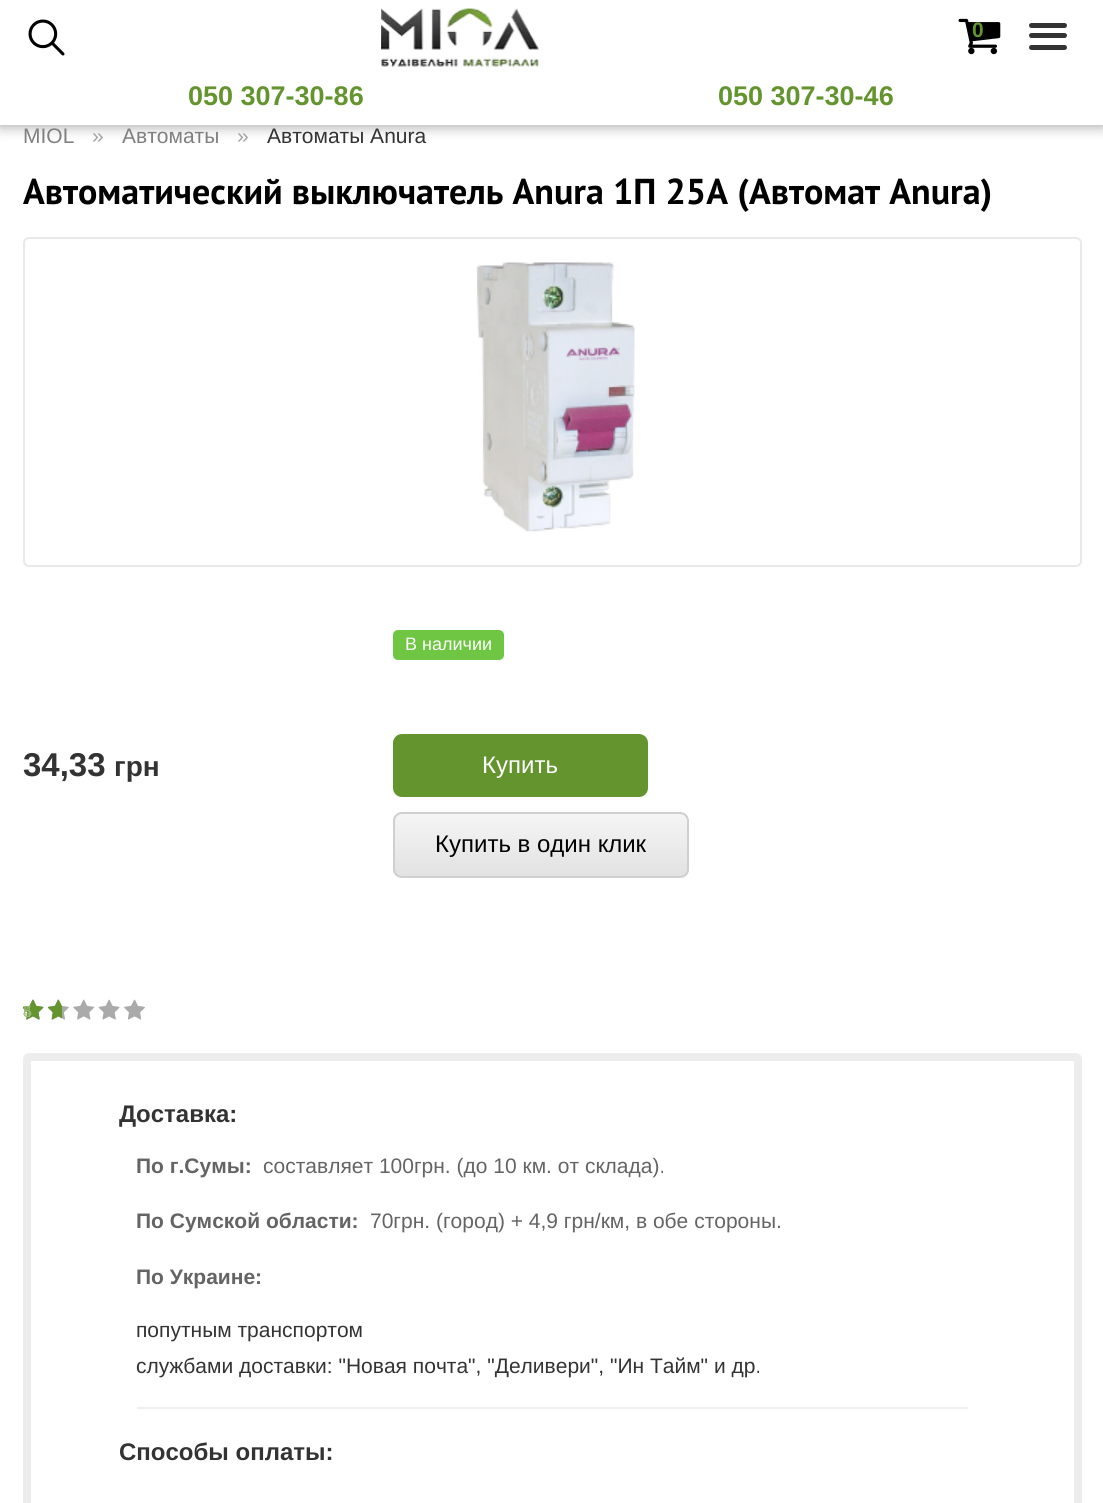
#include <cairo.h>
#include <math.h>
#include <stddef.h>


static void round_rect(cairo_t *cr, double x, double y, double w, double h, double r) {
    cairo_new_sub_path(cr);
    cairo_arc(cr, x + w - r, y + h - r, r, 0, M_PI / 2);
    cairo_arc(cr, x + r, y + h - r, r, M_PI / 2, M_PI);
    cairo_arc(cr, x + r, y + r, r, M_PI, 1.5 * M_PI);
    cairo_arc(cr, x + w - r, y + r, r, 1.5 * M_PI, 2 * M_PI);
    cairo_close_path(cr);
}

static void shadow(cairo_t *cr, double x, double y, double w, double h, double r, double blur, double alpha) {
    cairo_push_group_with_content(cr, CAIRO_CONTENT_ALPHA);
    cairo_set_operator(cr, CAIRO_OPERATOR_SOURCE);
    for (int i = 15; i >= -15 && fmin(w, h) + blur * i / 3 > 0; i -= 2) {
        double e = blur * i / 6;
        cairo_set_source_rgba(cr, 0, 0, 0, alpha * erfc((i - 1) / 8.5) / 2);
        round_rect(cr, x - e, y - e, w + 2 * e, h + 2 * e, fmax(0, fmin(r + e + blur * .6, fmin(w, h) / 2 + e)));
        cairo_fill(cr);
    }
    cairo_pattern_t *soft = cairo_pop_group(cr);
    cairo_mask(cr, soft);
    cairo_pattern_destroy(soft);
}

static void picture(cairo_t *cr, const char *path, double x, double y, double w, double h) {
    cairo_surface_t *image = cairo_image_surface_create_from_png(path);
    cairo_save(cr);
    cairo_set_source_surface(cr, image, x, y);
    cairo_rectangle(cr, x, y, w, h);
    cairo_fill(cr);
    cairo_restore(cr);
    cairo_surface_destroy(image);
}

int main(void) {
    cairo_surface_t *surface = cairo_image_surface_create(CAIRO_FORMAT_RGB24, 1103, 1503);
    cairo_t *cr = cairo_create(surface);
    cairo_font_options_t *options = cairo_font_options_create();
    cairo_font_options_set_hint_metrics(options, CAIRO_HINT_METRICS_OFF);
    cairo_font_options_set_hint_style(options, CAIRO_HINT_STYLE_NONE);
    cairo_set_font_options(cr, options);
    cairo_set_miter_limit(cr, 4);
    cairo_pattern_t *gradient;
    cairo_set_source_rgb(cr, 1, 1, 1);
    cairo_paint(cr);
    cairo_set_source_rgb(cr, 0, 0, 0);
    shadow(cr, 0, 2, 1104, 124, 0, 7, 0.37);
    cairo_set_source_rgb(cr, 1, 1, 1);
    cairo_rectangle(cr, 0, 0, 1103, 125);
    cairo_fill(cr);
    picture(cr, "img1.png", 28, 19, 37, 37);
    picture(cr, "img2.png", 381, 8, 158, 59);
    picture(cr, "img3.png", 958, 18, 43, 37);
    cairo_select_font_face(cr, "Liberation Sans", CAIRO_FONT_SLANT_NORMAL, CAIRO_FONT_WEIGHT_BOLD);
    cairo_set_font_size(cr, 21);
    cairo_set_source_rgb(cr, 0.388, 0.58, 0.18);
    cairo_move_to(cr, 972, 37);
    cairo_show_text(cr, "0");
    cairo_set_source_rgb(cr, 0.2, 0.2, 0.2);
    round_rect(cr, 1029, 23, 38, 5, 2.5);
    cairo_fill(cr);
    round_rect(cr, 1029, 33, 38, 5, 2.5);
    cairo_fill(cr);
    round_rect(cr, 1029, 45, 38, 5, 2.5);
    cairo_fill(cr);
    cairo_set_font_size(cr, 27);
    cairo_set_source_rgb(cr, 0.388, 0.58, 0.18);
    cairo_move_to(cr, 188, 105);
    cairo_show_text(cr, "050 307-30-86");
    cairo_move_to(cr, 718, 105);
    cairo_show_text(cr, "050 307-30-46");
    cairo_select_font_face(cr, "Liberation Sans", CAIRO_FONT_SLANT_NORMAL, CAIRO_FONT_WEIGHT_NORMAL);
    cairo_set_font_size(cr, 21);
    cairo_set_source_rgb(cr, 0.498, 0.498, 0.498);
    cairo_move_to(cr, 23, 143);
    cairo_show_text(cr, "MIOL");
    cairo_set_source_rgb(cr, 0.639, 0.639, 0.639);
    cairo_move_to(cr, 92, 143);
    cairo_show_text(cr, "»");
    cairo_set_source_rgb(cr, 0.498, 0.498, 0.498);
    cairo_move_to(cr, 122, 143);
    cairo_show_text(cr, "Автоматы");
    cairo_set_source_rgb(cr, 0.639, 0.639, 0.639);
    cairo_move_to(cr, 237, 143);
    cairo_show_text(cr, "»");
    cairo_set_source_rgb(cr, 0.2, 0.2, 0.2);
    cairo_move_to(cr, 267, 143);
    cairo_show_text(cr, "Автоматы Anura");
    cairo_select_font_face(cr, "PT Sans", CAIRO_FONT_SLANT_NORMAL, CAIRO_FONT_WEIGHT_BOLD);
    cairo_set_font_size(cr, 36);
    cairo_set_source_rgb(cr, 0, 0, 0);
    cairo_move_to(cr, 23, 204);
    cairo_show_text(cr, "Автоматический выключатель Anura 1П 25А (Автомат Anura)");
    round_rect(cr, 24, 238, 1057, 328, 5);
    cairo_set_source_rgb(cr, 0.914, 0.914, 0.914);
    cairo_stroke(cr);
    picture(cr, "img4.png", 476, 262, 159, 270);
    cairo_set_source_rgb(cr, 0.431, 0.776, 0.259);
    round_rect(cr, 393, 630, 111, 30, 5);
    cairo_fill(cr);
    cairo_select_font_face(cr, "Liberation Sans", CAIRO_FONT_SLANT_NORMAL, CAIRO_FONT_WEIGHT_NORMAL);
    cairo_set_font_size(cr, 18);
    cairo_set_source_rgb(cr, 1, 1, 1);
    cairo_move_to(cr, 405, 650);
    cairo_show_text(cr, "В наличии");
    cairo_select_font_face(cr, "Liberation Sans", CAIRO_FONT_SLANT_NORMAL, CAIRO_FONT_WEIGHT_BOLD);
    cairo_set_font_size(cr, 33);
    cairo_set_source_rgb(cr, 0.2, 0.2, 0.2);
    cairo_move_to(cr, 23, 776);
    cairo_show_text(cr, "34,33");
    cairo_set_font_size(cr, 28);
    cairo_move_to(cr, 114, 776);
    cairo_show_text(cr, "грн");
    cairo_set_source_rgb(cr, 0.388, 0.58, 0.18);
    round_rect(cr, 393, 734, 255, 63, 9);
    cairo_fill(cr);
    cairo_select_font_face(cr, "Liberation Sans", CAIRO_FONT_SLANT_NORMAL, CAIRO_FONT_WEIGHT_NORMAL);
    cairo_set_font_size(cr, 24);
    cairo_set_source_rgb(cr, 1, 1, 1);
    cairo_move_to(cr, 482, 773);
    cairo_show_text(cr, "Купить");
    cairo_save(cr);
    round_rect(cr, 393, 812, 296, 66, 9);
    cairo_clip(cr);
    gradient = cairo_pattern_create_linear(541, 813, 541, 876);
    cairo_pattern_add_color_stop_rgba(gradient, 0, 0.961, 0.961, 0.961, 1);
    cairo_pattern_add_color_stop_rgba(gradient, 1, 0.886, 0.886, 0.886, 1);
    cairo_set_source(cr, gradient);
    cairo_pattern_destroy(gradient);
    cairo_rectangle(cr, 393, 813, 296, 63);
    cairo_fill(cr);
    cairo_restore(cr);
    round_rect(cr, 394, 813, 294, 64, 8);
    cairo_set_source_rgb(cr, 0.812, 0.812, 0.812);
    cairo_stroke(cr);
    cairo_set_source_rgb(cr, 0, 0, 0);
    cairo_move_to(cr, 435, 852);
    cairo_show_text(cr, "Купить в один клик");
    picture(cr, "img5.png", 23, 999, 122, 21);
    picture(cr, "img6.png", 23, 999, 39, 21);
    cairo_set_font_size(cr, 16);
    cairo_set_source_rgb(cr, 0.608, 0.725, 0.478);
    cairo_move_to(cr, 23, 1017);
    cairo_show_text(cr, "5");
    cairo_set_source_rgb(cr, 0.592, 0.718, 0.455);
    cairo_move_to(cr, 23, 1017);
    cairo_show_text(cr, "4");
    round_rect(cr, 27, 1057, 1051, 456, 2);
    cairo_set_source_rgb(cr, 0.929, 0.929, 0.929);
    cairo_set_line_width(cr, 8);
    cairo_stroke(cr);
    cairo_select_font_face(cr, "Liberation Sans", CAIRO_FONT_SLANT_NORMAL, CAIRO_FONT_WEIGHT_BOLD);
    cairo_set_font_size(cr, 24);
    cairo_set_source_rgb(cr, 0.2, 0.2, 0.2);
    cairo_move_to(cr, 119, 1122);
    cairo_show_text(cr, "Доставка:");
    cairo_set_font_size(cr, 21);
    cairo_set_source_rgb(cr, 0.392, 0.392, 0.392);
    cairo_move_to(cr, 136, 1173);
    cairo_show_text(cr, "По г.Сумы:");
    cairo_select_font_face(cr, "Liberation Sans", CAIRO_FONT_SLANT_NORMAL, CAIRO_FONT_WEIGHT_NORMAL);
    cairo_move_to(cr, 263, 1173);
    cairo_show_text(cr, "составляет 100грн. (до 10 км. от склада).");
    cairo_select_font_face(cr, "Liberation Sans", CAIRO_FONT_SLANT_NORMAL, CAIRO_FONT_WEIGHT_BOLD);
    cairo_move_to(cr, 136, 1228);
    cairo_show_text(cr, "По Сумской области:");
    cairo_select_font_face(cr, "Liberation Sans", CAIRO_FONT_SLANT_NORMAL, CAIRO_FONT_WEIGHT_NORMAL);
    cairo_move_to(cr, 370, 1228);
    cairo_show_text(cr, "70грн. (город) + 4,9 грн/км, в обе стороны.");
    cairo_select_font_face(cr, "Liberation Sans", CAIRO_FONT_SLANT_NORMAL, CAIRO_FONT_WEIGHT_BOLD);
    cairo_move_to(cr, 136, 1284);
    cairo_show_text(cr, "По Украине:");
    cairo_select_font_face(cr, "Liberation Sans", CAIRO_FONT_SLANT_NORMAL, CAIRO_FONT_WEIGHT_NORMAL);
    cairo_set_source_rgb(cr, 0.2, 0.2, 0.2);
    cairo_move_to(cr, 136, 1337);
    cairo_show_text(cr, "попутным транспортом");
    cairo_move_to(cr, 136, 1373);
    cairo_show_text(cr, "службами доставки: \"Новая почта\", \"Деливери\", \"Ин Тайм\" и др.");
    cairo_set_source_rgb(cr, 0.933, 0.933, 0.933);
    cairo_rectangle(cr, 137, 1407, 831, 2);
    cairo_fill(cr);
    cairo_select_font_face(cr, "Liberation Sans", CAIRO_FONT_SLANT_NORMAL, CAIRO_FONT_WEIGHT_BOLD);
    cairo_set_font_size(cr, 24);
    cairo_set_source_rgb(cr, 0.2, 0.2, 0.2);
    cairo_move_to(cr, 119, 1460);
    cairo_show_text(cr, "Способы оплаты:");
    cairo_surface_write_to_png(surface, "page.png");
    cairo_font_options_destroy(options);
    cairo_destroy(cr);
    cairo_surface_destroy(surface);
    return 0;
}
